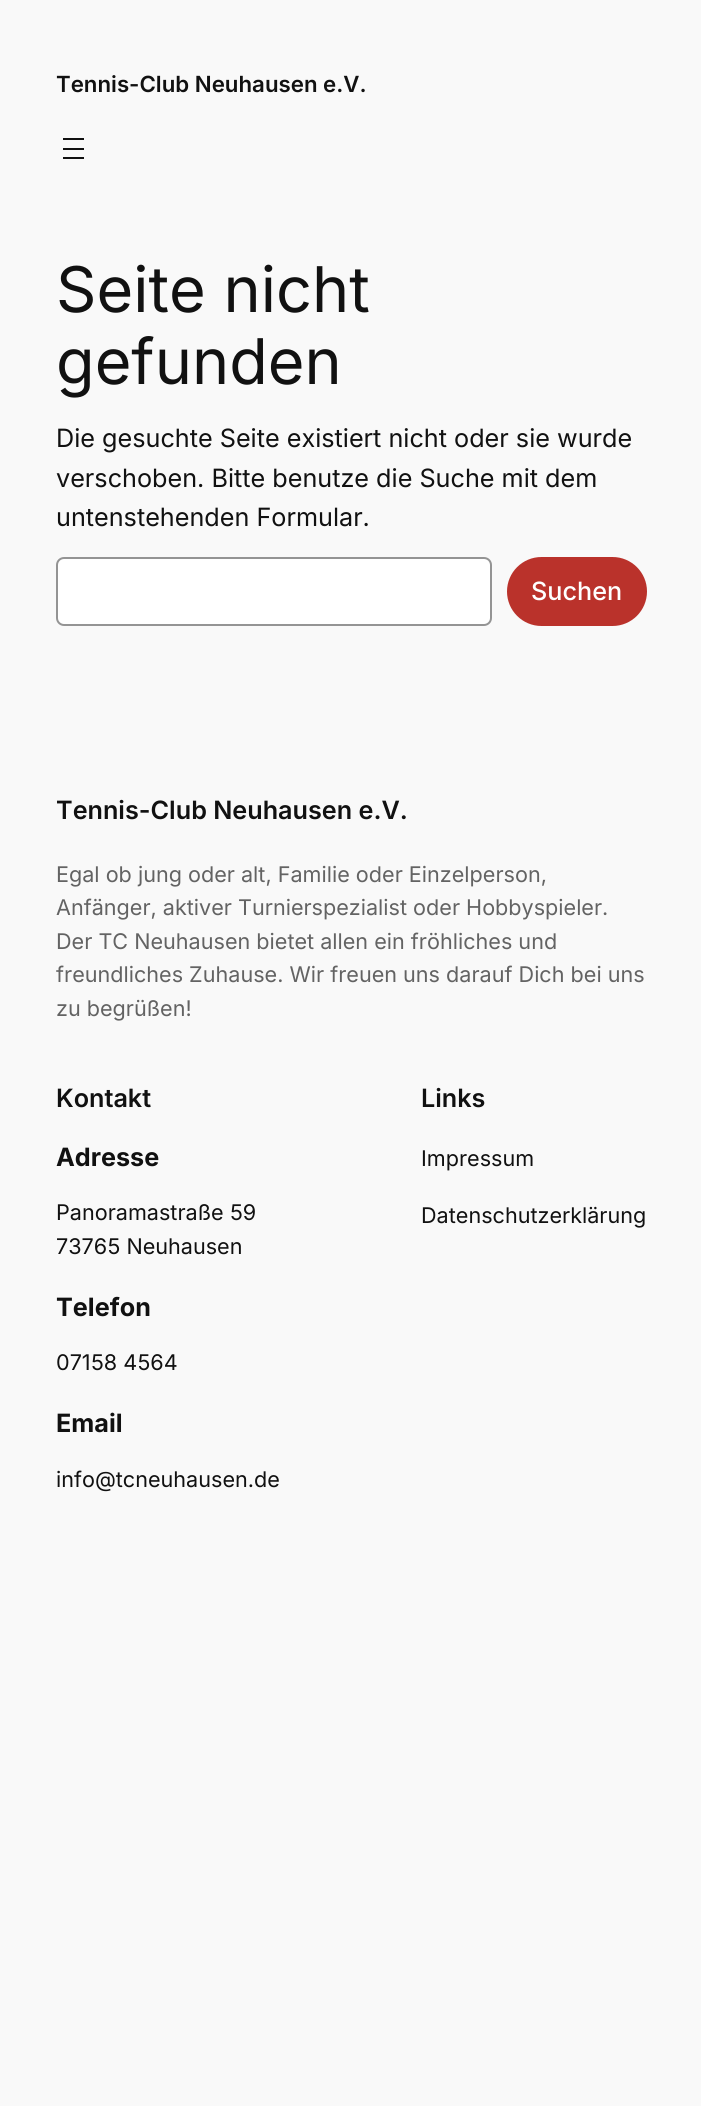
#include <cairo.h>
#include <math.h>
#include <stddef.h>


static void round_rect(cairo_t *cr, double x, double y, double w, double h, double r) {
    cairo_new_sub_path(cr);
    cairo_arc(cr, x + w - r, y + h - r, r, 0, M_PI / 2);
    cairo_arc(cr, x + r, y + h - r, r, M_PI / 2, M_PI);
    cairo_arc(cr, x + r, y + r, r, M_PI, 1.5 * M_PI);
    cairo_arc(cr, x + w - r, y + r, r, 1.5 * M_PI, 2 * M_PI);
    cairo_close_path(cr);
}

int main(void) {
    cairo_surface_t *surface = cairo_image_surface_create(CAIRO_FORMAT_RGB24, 701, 2106);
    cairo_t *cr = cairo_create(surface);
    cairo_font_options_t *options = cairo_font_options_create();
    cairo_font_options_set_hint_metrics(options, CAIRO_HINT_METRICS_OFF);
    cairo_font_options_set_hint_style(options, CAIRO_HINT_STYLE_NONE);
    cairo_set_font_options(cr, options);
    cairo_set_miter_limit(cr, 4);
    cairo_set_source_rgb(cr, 0.976, 0.976, 0.976);
    cairo_paint(cr);
    cairo_select_font_face(cr, "Inter SemiBold", CAIRO_FONT_SLANT_NORMAL, CAIRO_FONT_WEIGHT_NORMAL);
    cairo_set_font_size(cr, 22.25);
    cairo_set_source_rgb(cr, 0.067, 0.067, 0.067);
    cairo_move_to(cr, 56, 92);
    cairo_show_text(cr, "Tennis-Club Neuhausen e.V.");
    cairo_rectangle(cr, 63, 138, 21, 2);
    cairo_fill(cr);
    cairo_rectangle(cr, 63, 148, 21, 2);
    cairo_fill(cr);
    cairo_rectangle(cr, 63, 157, 21, 2);
    cairo_fill(cr);
    cairo_select_font_face(cr, "Inter", CAIRO_FONT_SLANT_NORMAL, CAIRO_FONT_WEIGHT_NORMAL);
    cairo_set_font_size(cr, 63);
    cairo_move_to(cr, 56, 312);
    cairo_show_text(cr, "Seite nicht");
    cairo_move_to(cr, 56, 384);
    cairo_show_text(cr, "gefunden");
    cairo_set_font_size(cr, 25.2);
    cairo_move_to(cr, 56, 447);
    cairo_show_text(cr, "Die gesuchte Seite existiert nicht oder sie wurde");
    cairo_move_to(cr, 56, 487);
    cairo_show_text(cr, "verschoben. Bitte benutze die Suche mit dem");
    cairo_move_to(cr, 56, 526);
    cairo_show_text(cr, "untenstehenden Formular.");
    cairo_set_source_rgb(cr, 1, 1, 1);
    round_rect(cr, 57, 558, 434, 67, 7);
    cairo_fill_preserve(cr);
    cairo_set_source_rgb(cr, 0.58, 0.58, 0.58);
    cairo_stroke(cr);
    cairo_set_source_rgb(cr, 0.729, 0.196, 0.169);
    round_rect(cr, 507, 557, 140, 69, 34.5);
    cairo_fill(cr);
    cairo_select_font_face(cr, "Inter Medium", CAIRO_FONT_SLANT_NORMAL, CAIRO_FONT_WEIGHT_NORMAL);
    cairo_set_source_rgb(cr, 1, 1, 1);
    cairo_move_to(cr, 531, 600);
    cairo_show_text(cr, "Suchen");
    cairo_select_font_face(cr, "Inter SemiBold", CAIRO_FONT_SLANT_NORMAL, CAIRO_FONT_WEIGHT_NORMAL);
    cairo_set_source_rgb(cr, 0.067, 0.067, 0.067);
    cairo_move_to(cr, 56, 819);
    cairo_show_text(cr, "Tennis-Club Neuhausen e.V.");
    cairo_select_font_face(cr, "Inter", CAIRO_FONT_SLANT_NORMAL, CAIRO_FONT_WEIGHT_NORMAL);
    cairo_set_font_size(cr, 21.6);
    cairo_set_source_rgb(cr, 0.388, 0.388, 0.388);
    cairo_move_to(cr, 56, 882);
    cairo_show_text(cr, "Egal ob jung oder alt, Familie oder Einzelperson,");
    cairo_move_to(cr, 56, 915);
    cairo_show_text(cr, "Anfänger, aktiver Turnierspezialist oder Hobbyspieler.");
    cairo_move_to(cr, 56, 949);
    cairo_show_text(cr, "Der TC Neuhausen bietet allen ein fröhliches und");
    cairo_move_to(cr, 56, 982);
    cairo_show_text(cr, "freundliches Zuhause. Wir freuen uns darauf Dich bei uns");
    cairo_move_to(cr, 56, 1016);
    cairo_show_text(cr, "zu begrüßen!");
    cairo_select_font_face(cr, "Inter SemiBold", CAIRO_FONT_SLANT_NORMAL, CAIRO_FONT_WEIGHT_NORMAL);
    cairo_set_font_size(cr, 25.2);
    cairo_set_source_rgb(cr, 0.067, 0.067, 0.067);
    cairo_move_to(cr, 56, 1107);
    cairo_show_text(cr, "Kontakt");
    cairo_select_font_face(cr, "Inter", CAIRO_FONT_SLANT_NORMAL, CAIRO_FONT_WEIGHT_BOLD);
    cairo_move_to(cr, 56, 1166);
    cairo_show_text(cr, "Adresse");
    cairo_select_font_face(cr, "Inter", CAIRO_FONT_SLANT_NORMAL, CAIRO_FONT_WEIGHT_NORMAL);
    cairo_set_font_size(cr, 21.6);
    cairo_move_to(cr, 56, 1220);
    cairo_show_text(cr, "Panoramastraße 59");
    cairo_move_to(cr, 56, 1254);
    cairo_show_text(cr, "73765 Neuhausen");
    cairo_select_font_face(cr, "Inter", CAIRO_FONT_SLANT_NORMAL, CAIRO_FONT_WEIGHT_BOLD);
    cairo_set_font_size(cr, 25.2);
    cairo_move_to(cr, 56, 1316);
    cairo_show_text(cr, "Telefon");
    cairo_select_font_face(cr, "Inter", CAIRO_FONT_SLANT_NORMAL, CAIRO_FONT_WEIGHT_NORMAL);
    cairo_set_font_size(cr, 21.6);
    cairo_move_to(cr, 56, 1370);
    cairo_show_text(cr, "07158 4564");
    cairo_select_font_face(cr, "Inter", CAIRO_FONT_SLANT_NORMAL, CAIRO_FONT_WEIGHT_BOLD);
    cairo_set_font_size(cr, 25.2);
    cairo_move_to(cr, 56, 1432);
    cairo_show_text(cr, "Email");
    cairo_select_font_face(cr, "Inter", CAIRO_FONT_SLANT_NORMAL, CAIRO_FONT_WEIGHT_NORMAL);
    cairo_set_font_size(cr, 21.6);
    cairo_move_to(cr, 56, 1487);
    cairo_show_text(cr, "info@tcneuhausen.de");
    cairo_select_font_face(cr, "Inter SemiBold", CAIRO_FONT_SLANT_NORMAL, CAIRO_FONT_WEIGHT_NORMAL);
    cairo_set_font_size(cr, 25.2);
    cairo_move_to(cr, 421, 1107);
    cairo_show_text(cr, "Links");
    cairo_select_font_face(cr, "Inter", CAIRO_FONT_SLANT_NORMAL, CAIRO_FONT_WEIGHT_NORMAL);
    cairo_set_font_size(cr, 21.6);
    cairo_move_to(cr, 421, 1166);
    cairo_show_text(cr, "Impressum");
    cairo_move_to(cr, 421, 1223);
    cairo_show_text(cr, "Datenschutzerklärung");
    cairo_surface_write_to_png(surface, "page.png");
    cairo_font_options_destroy(options);
    cairo_destroy(cr);
    cairo_surface_destroy(surface);
    return 0;
}
